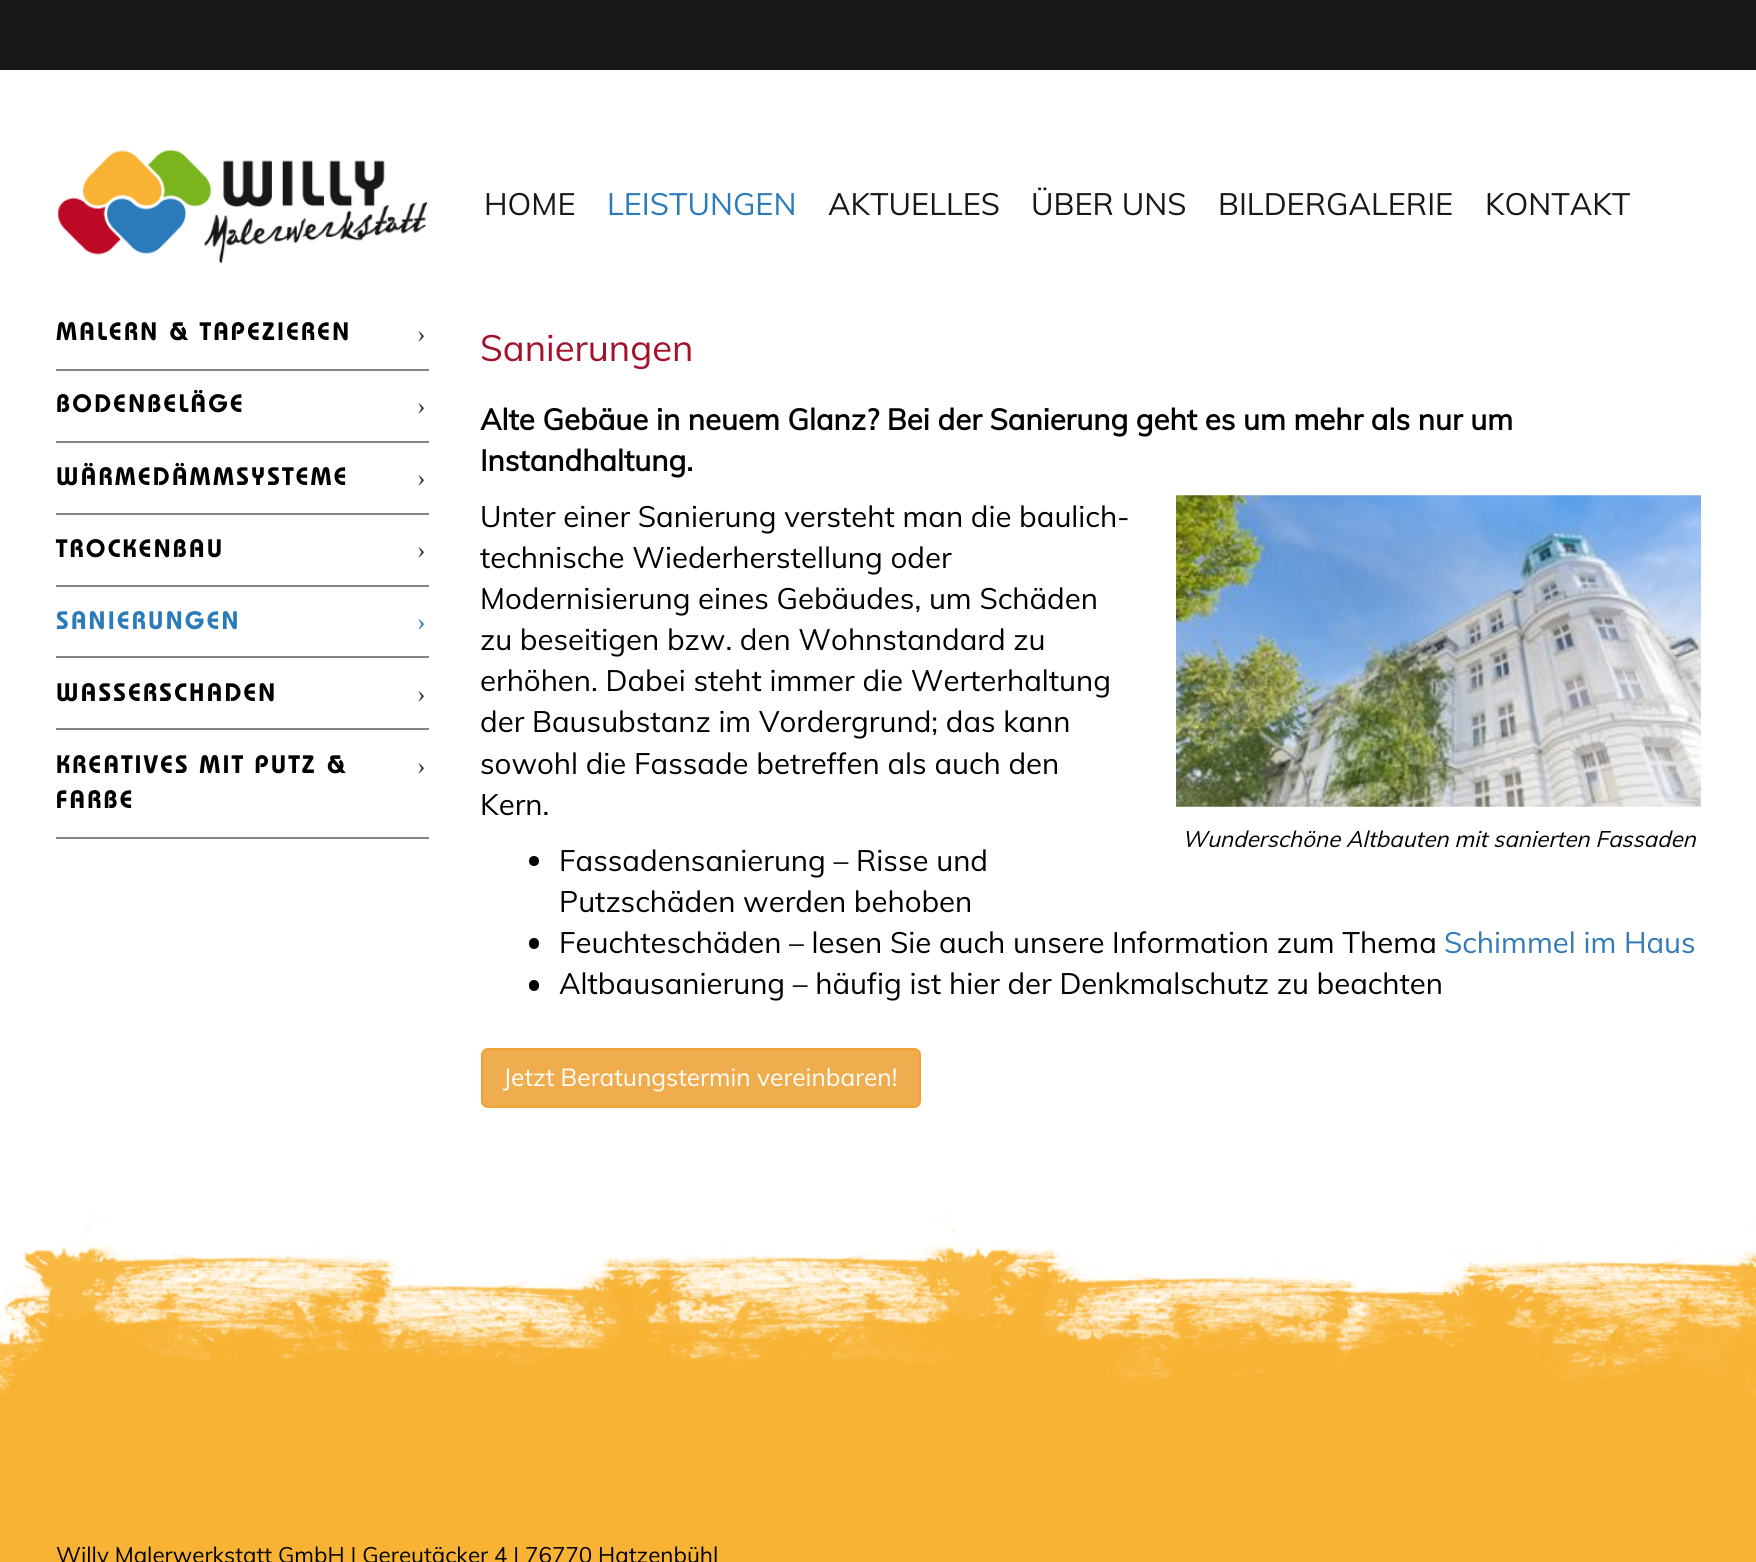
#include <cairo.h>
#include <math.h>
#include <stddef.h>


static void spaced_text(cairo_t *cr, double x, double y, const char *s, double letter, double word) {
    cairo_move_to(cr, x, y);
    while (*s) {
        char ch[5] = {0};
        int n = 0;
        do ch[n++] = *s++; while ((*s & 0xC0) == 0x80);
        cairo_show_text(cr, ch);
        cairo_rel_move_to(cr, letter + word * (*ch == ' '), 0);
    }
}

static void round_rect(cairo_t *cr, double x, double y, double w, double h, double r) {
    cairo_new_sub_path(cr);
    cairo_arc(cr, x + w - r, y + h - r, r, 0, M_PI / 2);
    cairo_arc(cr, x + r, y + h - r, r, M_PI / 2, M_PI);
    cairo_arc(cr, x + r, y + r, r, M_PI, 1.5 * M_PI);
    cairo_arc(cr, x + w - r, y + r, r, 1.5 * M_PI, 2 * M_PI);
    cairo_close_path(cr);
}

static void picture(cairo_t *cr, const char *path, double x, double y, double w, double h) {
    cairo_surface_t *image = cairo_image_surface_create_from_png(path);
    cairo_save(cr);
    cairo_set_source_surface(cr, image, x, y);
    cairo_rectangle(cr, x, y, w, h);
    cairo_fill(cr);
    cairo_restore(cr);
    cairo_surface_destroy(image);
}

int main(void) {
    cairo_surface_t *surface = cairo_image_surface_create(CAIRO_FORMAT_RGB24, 1756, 1562);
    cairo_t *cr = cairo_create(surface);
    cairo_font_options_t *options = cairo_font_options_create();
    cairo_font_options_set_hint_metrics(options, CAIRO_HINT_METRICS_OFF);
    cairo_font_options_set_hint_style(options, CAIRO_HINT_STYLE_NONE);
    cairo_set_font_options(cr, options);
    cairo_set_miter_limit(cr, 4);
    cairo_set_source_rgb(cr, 1, 1, 1);
    cairo_paint(cr);
    cairo_set_source_rgb(cr, 0.102, 0.09, 0.106);
    cairo_rectangle(cr, 0, 0, 1756, 70);
    cairo_fill(cr);
    picture(cr, "img1.png", 58, 150, 369, 114);
    cairo_select_font_face(cr, "Muli", CAIRO_FONT_SLANT_NORMAL, CAIRO_FONT_WEIGHT_NORMAL);
    cairo_set_font_size(cr, 30.75);
    cairo_move_to(cr, 484, 215);
    cairo_show_text(cr, "HOME");
    cairo_set_source_rgb(cr, 0.169, 0.482, 0.733);
    cairo_move_to(cr, 607, 215);
    cairo_show_text(cr, "LEISTUNGEN");
    cairo_set_source_rgb(cr, 0.102, 0.09, 0.106);
    cairo_move_to(cr, 828, 215);
    cairo_show_text(cr, "AKTUELLES");
    cairo_move_to(cr, 1031, 215);
    cairo_show_text(cr, "ÜBER UNS");
    cairo_move_to(cr, 1218, 215);
    cairo_show_text(cr, "BILDERGALERIE");
    cairo_move_to(cr, 1485, 215);
    cairo_show_text(cr, "KONTAKT");
    cairo_set_source_rgb(cr, 0.518, 0.518, 0.518);
    cairo_rectangle(cr, 56, 369, 373, 2);
    cairo_fill(cr);
    cairo_select_font_face(cr, "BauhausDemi", CAIRO_FONT_SLANT_NORMAL, CAIRO_FONT_WEIGHT_NORMAL);
    cairo_set_font_size(cr, 25.25);
    cairo_set_source_rgb(cr, 0, 0, 0);
    spaced_text(cr, 56, 340, "MALERN & TAPEZIEREN", 2.25, 0);
    cairo_select_font_face(cr, "Liberation Serif", CAIRO_FONT_SLANT_NORMAL, CAIRO_FONT_WEIGHT_NORMAL);
    cairo_set_source_rgb(cr, 0.224, 0.216, 0.216);
    spaced_text(cr, 417, 342, "›", 2.25, 0);
    cairo_set_source_rgb(cr, 0.518, 0.518, 0.518);
    cairo_rectangle(cr, 56, 441, 373, 2);
    cairo_fill(cr);
    cairo_select_font_face(cr, "BauhausDemi", CAIRO_FONT_SLANT_NORMAL, CAIRO_FONT_WEIGHT_NORMAL);
    cairo_set_source_rgb(cr, 0, 0, 0);
    spaced_text(cr, 56, 412, "BODENBELÄGE", 2.25, 0);
    cairo_select_font_face(cr, "Liberation Serif", CAIRO_FONT_SLANT_NORMAL, CAIRO_FONT_WEIGHT_NORMAL);
    cairo_set_source_rgb(cr, 0.224, 0.216, 0.216);
    spaced_text(cr, 417, 414, "›", 2.25, 0);
    cairo_set_source_rgb(cr, 0.518, 0.518, 0.518);
    cairo_rectangle(cr, 56, 513, 373, 2);
    cairo_fill(cr);
    cairo_select_font_face(cr, "BauhausDemi", CAIRO_FONT_SLANT_NORMAL, CAIRO_FONT_WEIGHT_NORMAL);
    cairo_set_source_rgb(cr, 0, 0, 0);
    spaced_text(cr, 56, 485, "WÄRMEDÄMMSYSTEME", 2.25, 0);
    cairo_select_font_face(cr, "Liberation Serif", CAIRO_FONT_SLANT_NORMAL, CAIRO_FONT_WEIGHT_NORMAL);
    cairo_set_source_rgb(cr, 0.224, 0.216, 0.216);
    spaced_text(cr, 417, 486, "›", 2.25, 0);
    cairo_set_source_rgb(cr, 0.518, 0.518, 0.518);
    cairo_rectangle(cr, 56, 585, 373, 2);
    cairo_fill(cr);
    cairo_select_font_face(cr, "BauhausDemi", CAIRO_FONT_SLANT_NORMAL, CAIRO_FONT_WEIGHT_NORMAL);
    cairo_set_source_rgb(cr, 0, 0, 0);
    spaced_text(cr, 56, 557, "TROCKENBAU", 2.25, 0);
    cairo_select_font_face(cr, "Liberation Serif", CAIRO_FONT_SLANT_NORMAL, CAIRO_FONT_WEIGHT_NORMAL);
    cairo_set_source_rgb(cr, 0.224, 0.216, 0.216);
    spaced_text(cr, 417, 558, "›", 2.25, 0);
    cairo_set_source_rgb(cr, 0.518, 0.518, 0.518);
    cairo_rectangle(cr, 56, 656, 373, 2);
    cairo_fill(cr);
    cairo_select_font_face(cr, "BauhausDemi", CAIRO_FONT_SLANT_NORMAL, CAIRO_FONT_WEIGHT_NORMAL);
    cairo_set_source_rgb(cr, 0.169, 0.482, 0.733);
    spaced_text(cr, 56, 629, "SANIERUNGEN", 2.25, 0);
    cairo_select_font_face(cr, "Liberation Serif", CAIRO_FONT_SLANT_NORMAL, CAIRO_FONT_WEIGHT_NORMAL);
    spaced_text(cr, 417, 630, "›", 2.25, 0);
    cairo_set_source_rgb(cr, 0.518, 0.518, 0.518);
    cairo_rectangle(cr, 56, 728, 373, 2);
    cairo_fill(cr);
    cairo_select_font_face(cr, "BauhausDemi", CAIRO_FONT_SLANT_NORMAL, CAIRO_FONT_WEIGHT_NORMAL);
    cairo_set_source_rgb(cr, 0, 0, 0);
    spaced_text(cr, 56, 701, "WASSERSCHADEN", 2.25, 0);
    cairo_select_font_face(cr, "Liberation Serif", CAIRO_FONT_SLANT_NORMAL, CAIRO_FONT_WEIGHT_NORMAL);
    cairo_set_source_rgb(cr, 0.224, 0.216, 0.216);
    spaced_text(cr, 417, 702, "›", 2.25, 0);
    cairo_set_source_rgb(cr, 0.518, 0.518, 0.518);
    cairo_rectangle(cr, 56, 837, 373, 2);
    cairo_fill(cr);
    cairo_select_font_face(cr, "BauhausDemi", CAIRO_FONT_SLANT_NORMAL, CAIRO_FONT_WEIGHT_NORMAL);
    cairo_set_source_rgb(cr, 0, 0, 0);
    spaced_text(cr, 56, 773, "KREATIVES MIT PUTZ &", 2.25, 0);
    cairo_select_font_face(cr, "Liberation Serif", CAIRO_FONT_SLANT_NORMAL, CAIRO_FONT_WEIGHT_NORMAL);
    cairo_set_source_rgb(cr, 0.224, 0.216, 0.216);
    spaced_text(cr, 417, 774, "›", 2.25, 0);
    cairo_select_font_face(cr, "BauhausDemi", CAIRO_FONT_SLANT_NORMAL, CAIRO_FONT_WEIGHT_NORMAL);
    cairo_set_source_rgb(cr, 0, 0, 0);
    spaced_text(cr, 56, 808, "FARBE", 2.25, 0);
    cairo_select_font_face(cr, "Muli", CAIRO_FONT_SLANT_NORMAL, CAIRO_FONT_WEIGHT_NORMAL);
    cairo_set_font_size(cr, 36.5);
    cairo_set_source_rgb(cr, 0.635, 0.071, 0.165);
    cairo_move_to(cr, 480, 361);
    cairo_show_text(cr, "Sanierungen");
    cairo_select_font_face(cr, "Muli", CAIRO_FONT_SLANT_NORMAL, CAIRO_FONT_WEIGHT_BOLD);
    cairo_set_font_size(cr, 29.4);
    cairo_set_source_rgb(cr, 0, 0, 0);
    cairo_move_to(cr, 480, 430);
    cairo_show_text(cr, "Alte Gebäue in neuem Glanz? Bei der Sanierung geht es um mehr als nur um");
    cairo_move_to(cr, 480, 471);
    cairo_show_text(cr, "Instandhaltung.");
    cairo_select_font_face(cr, "Muli", CAIRO_FONT_SLANT_NORMAL, CAIRO_FONT_WEIGHT_NORMAL);
    cairo_move_to(cr, 480, 527);
    cairo_show_text(cr, "Unter einer Sanierung versteht man die baulich-");
    cairo_move_to(cr, 480, 568);
    cairo_show_text(cr, "technische Wiederherstellung oder");
    cairo_move_to(cr, 480, 609);
    cairo_show_text(cr, "Modernisierung eines Gebäudes, um Schäden");
    cairo_move_to(cr, 480, 650);
    cairo_show_text(cr, "zu beseitigen bzw. den Wohnstandard zu");
    cairo_move_to(cr, 480, 691);
    cairo_show_text(cr, "erhöhen. Dabei steht immer die Werterhaltung");
    cairo_move_to(cr, 480, 732);
    cairo_show_text(cr, "der Bausubstanz im Vordergrund; das kann");
    cairo_move_to(cr, 480, 774);
    cairo_show_text(cr, "sowohl die Fassade betreffen als auch den");
    cairo_move_to(cr, 480, 815);
    cairo_show_text(cr, "Kern.");
    picture(cr, "img2.png", 1176, 495, 525, 312);
    cairo_select_font_face(cr, "Muli", CAIRO_FONT_SLANT_ITALIC, CAIRO_FONT_WEIGHT_NORMAL);
    cairo_set_font_size(cr, 22.4);
    cairo_move_to(cr, 1182, 847);
    cairo_show_text(cr, "Wunderschöne Altbauten mit sanierten Fassaden");
    cairo_new_path(cr);
    cairo_arc(cr, 534, 861, 5, 0, 2 * M_PI);
    cairo_fill(cr);
    cairo_select_font_face(cr, "Muli", CAIRO_FONT_SLANT_NORMAL, CAIRO_FONT_WEIGHT_NORMAL);
    cairo_set_font_size(cr, 29.4);
    cairo_move_to(cr, 559, 871);
    cairo_show_text(cr, "Fassadensanierung – Risse und");
    cairo_move_to(cr, 559, 912);
    cairo_show_text(cr, "Putzschäden werden behoben");
    round_rect(cr, 529, 938, 10, 11, 5);
    cairo_fill(cr);
    cairo_move_to(cr, 559, 953);
    cairo_show_text(cr, "Feuchteschäden – lesen Sie auch unsere Information zum Thema");
    cairo_set_source_rgb(cr, 0.2, 0.478, 0.718);
    cairo_move_to(cr, 1444, 953);
    cairo_show_text(cr, "Schimmel im Haus");
    cairo_set_source_rgb(cr, 0, 0, 0);
    round_rect(cr, 529, 980, 10, 11, 5);
    cairo_fill(cr);
    cairo_move_to(cr, 559, 994);
    cairo_show_text(cr, "Altbausanierung – häufig ist hier der Denkmalschutz zu beachten");
    cairo_set_source_rgb(cr, 0.941, 0.678, 0.306);
    round_rect(cr, 482, 1049, 438, 58, 6);
    cairo_fill_preserve(cr);
    cairo_set_source_rgb(cr, 0.933, 0.635, 0.212);
    cairo_stroke(cr);
    cairo_set_font_size(cr, 24.5);
    cairo_set_source_rgb(cr, 1, 1, 1);
    cairo_move_to(cr, 503, 1086);
    cairo_show_text(cr, "Jetzt Beratungstermin vereinbaren!");
    picture(cr, "img3.png", 0, 1213, 1756, 349);
    cairo_set_font_size(cr, 22.4);
    cairo_set_source_rgb(cr, 0, 0, 0);
    cairo_move_to(cr, 56, 1563);
    cairo_show_text(cr, "Willy Malerwerkstatt GmbH | Gereutäcker 4 | 76770 Hatzenbühl");
    cairo_surface_write_to_png(surface, "page.png");
    cairo_font_options_destroy(options);
    cairo_destroy(cr);
    cairo_surface_destroy(surface);
    return 0;
}
